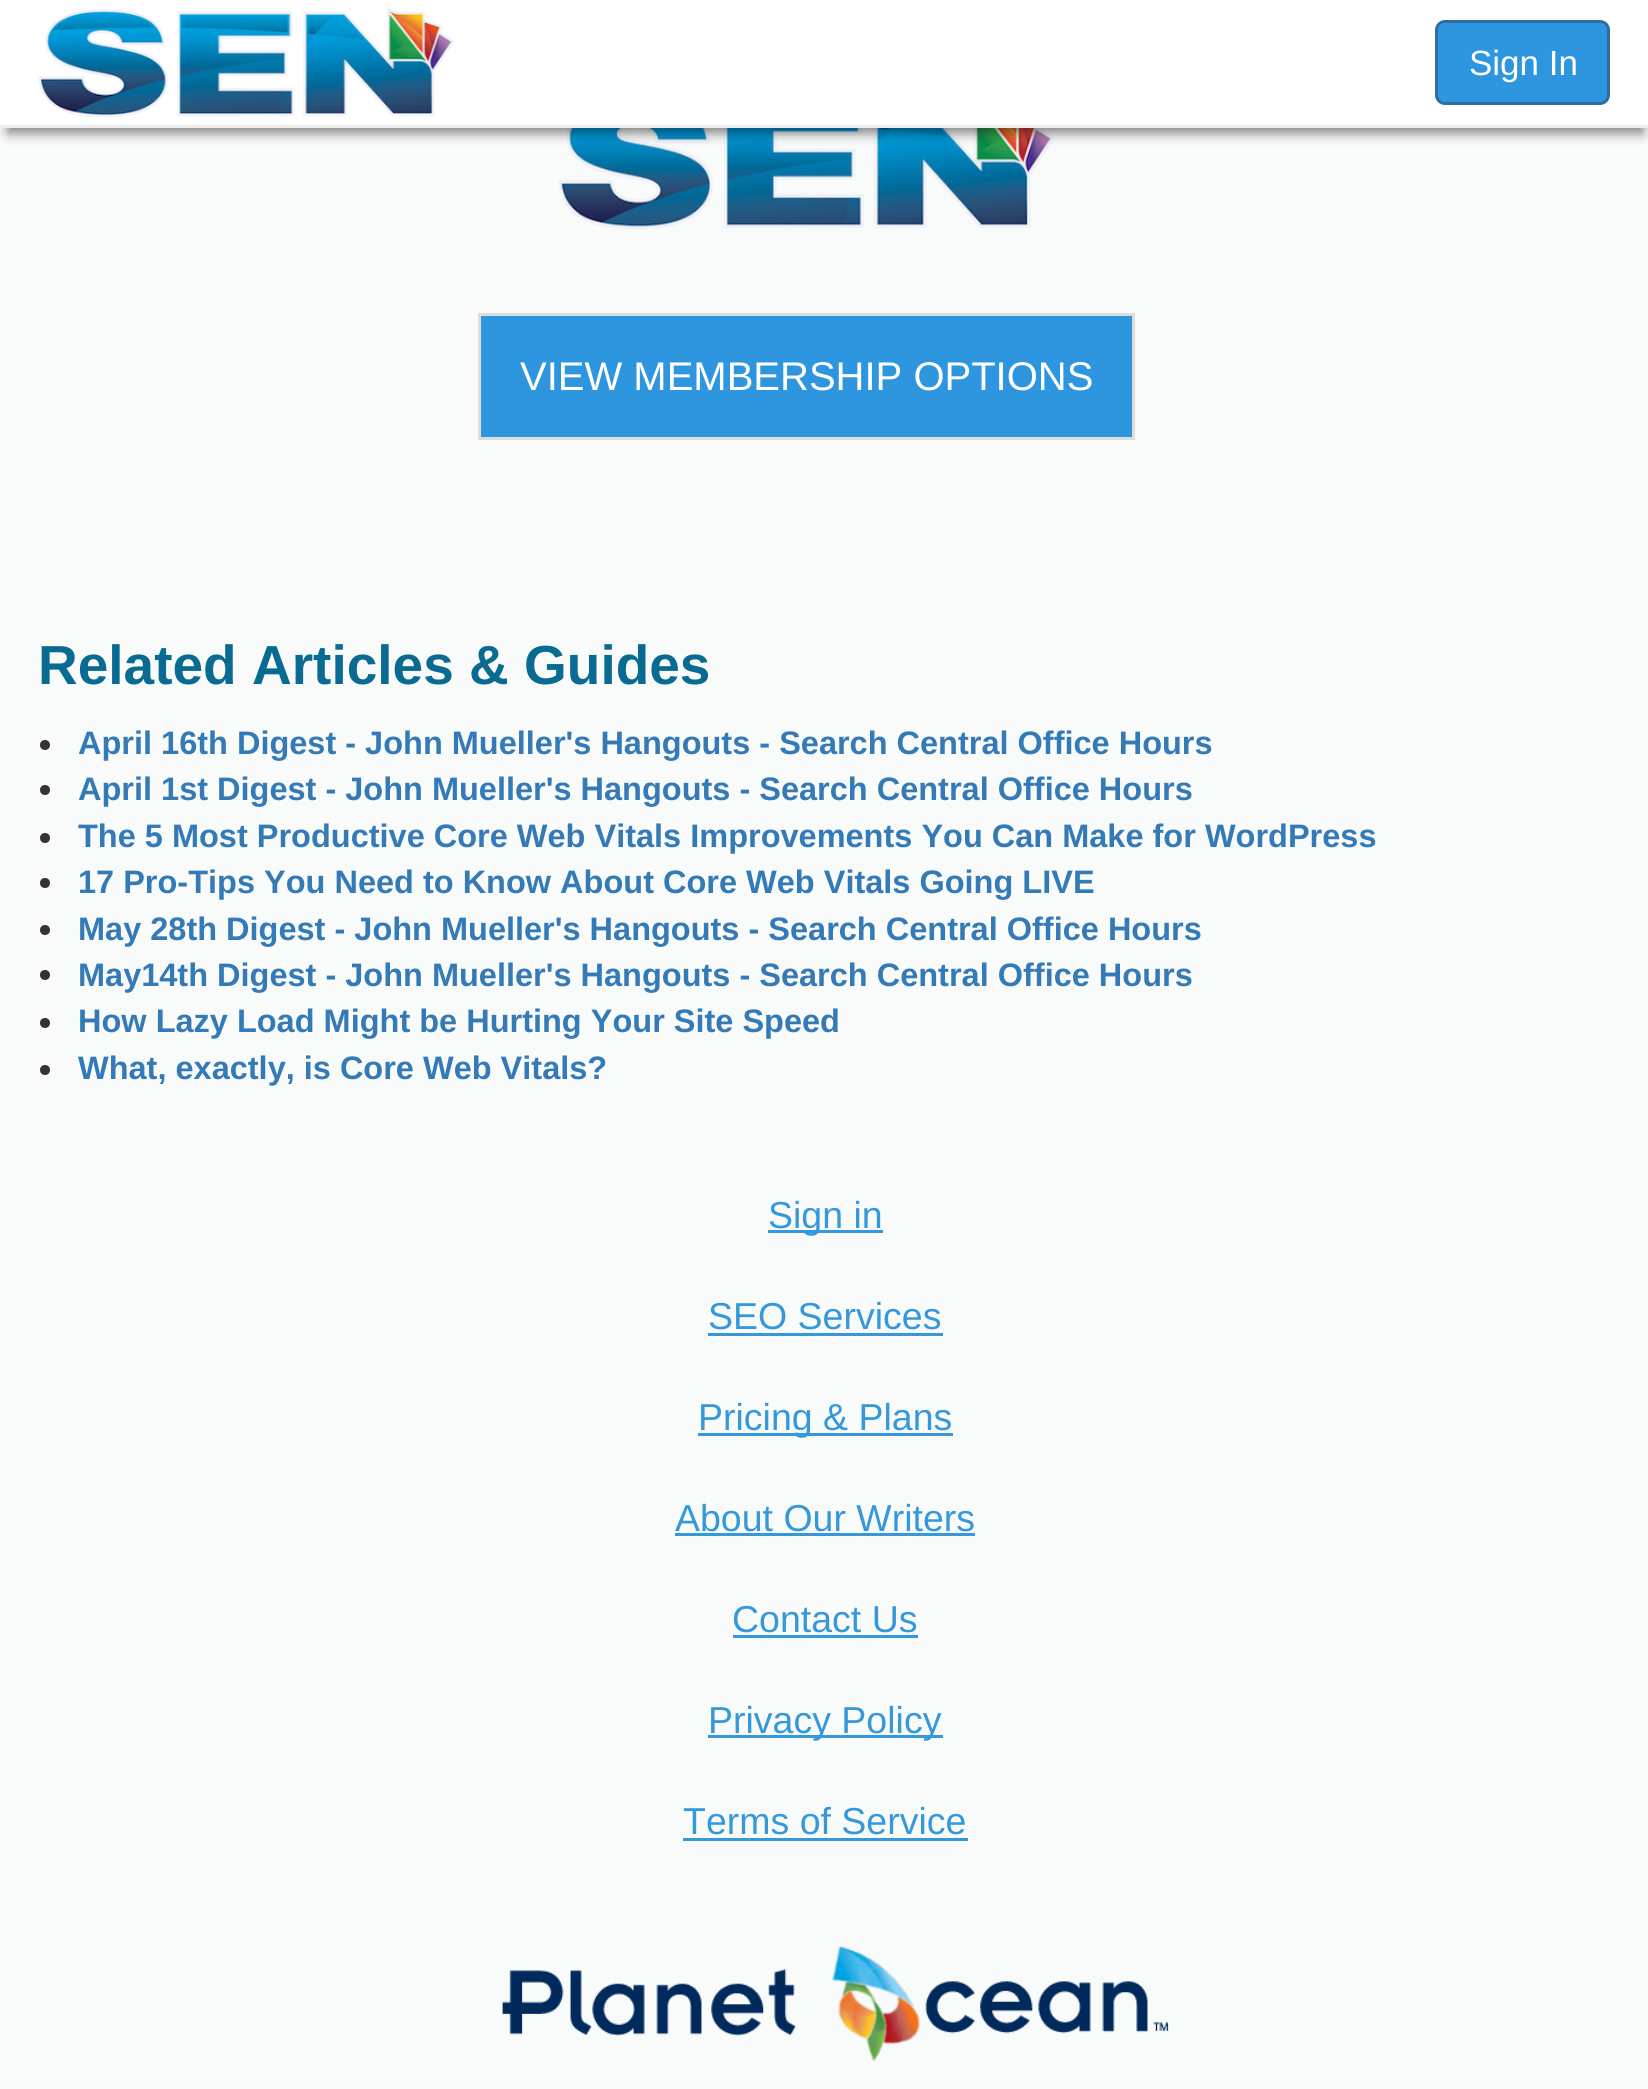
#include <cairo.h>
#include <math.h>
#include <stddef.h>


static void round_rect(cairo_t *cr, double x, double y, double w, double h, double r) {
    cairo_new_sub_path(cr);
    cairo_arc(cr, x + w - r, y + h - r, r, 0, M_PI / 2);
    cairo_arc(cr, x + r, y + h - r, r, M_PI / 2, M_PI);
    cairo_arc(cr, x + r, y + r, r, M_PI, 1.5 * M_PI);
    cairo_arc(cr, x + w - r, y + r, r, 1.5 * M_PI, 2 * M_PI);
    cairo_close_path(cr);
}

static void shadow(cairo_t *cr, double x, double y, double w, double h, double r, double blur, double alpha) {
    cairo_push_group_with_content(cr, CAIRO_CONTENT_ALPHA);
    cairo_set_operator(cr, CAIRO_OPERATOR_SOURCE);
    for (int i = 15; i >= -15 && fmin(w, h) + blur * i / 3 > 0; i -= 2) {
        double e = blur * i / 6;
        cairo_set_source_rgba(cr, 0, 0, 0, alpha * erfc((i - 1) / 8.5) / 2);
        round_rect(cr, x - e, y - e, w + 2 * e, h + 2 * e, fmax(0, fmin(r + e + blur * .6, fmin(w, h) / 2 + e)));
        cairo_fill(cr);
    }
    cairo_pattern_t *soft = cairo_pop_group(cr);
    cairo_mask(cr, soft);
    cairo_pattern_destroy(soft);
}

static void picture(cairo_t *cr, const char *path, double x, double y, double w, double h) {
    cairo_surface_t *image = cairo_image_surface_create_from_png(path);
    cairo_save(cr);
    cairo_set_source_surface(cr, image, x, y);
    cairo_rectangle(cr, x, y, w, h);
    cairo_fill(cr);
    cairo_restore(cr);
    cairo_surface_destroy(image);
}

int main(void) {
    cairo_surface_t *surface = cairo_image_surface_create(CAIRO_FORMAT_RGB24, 1648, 2089);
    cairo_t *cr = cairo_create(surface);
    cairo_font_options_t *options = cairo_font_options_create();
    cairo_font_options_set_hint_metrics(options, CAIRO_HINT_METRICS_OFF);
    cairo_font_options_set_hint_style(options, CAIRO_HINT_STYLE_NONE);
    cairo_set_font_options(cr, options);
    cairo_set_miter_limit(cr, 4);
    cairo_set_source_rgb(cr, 0.976, 0.98, 0.98);
    cairo_paint(cr);
    picture(cr, "img2.png", 558, 128, 496, 102);
    cairo_set_source_rgb(cr, 0, 0, 0);
    shadow(cr, 8, 20, 1635, 113, 0, 6, 0.5);
    cairo_set_source_rgb(cr, 1, 1, 1);
    cairo_rectangle(cr, 0, 0, 1648, 125);
    cairo_fill(cr);
    cairo_set_source_rgb(cr, 0.933, 0.933, 0.933);
    cairo_rectangle(cr, 0, 125, 1648, 3);
    cairo_fill(cr);
    picture(cr, "img1.png", 37, 6, 418, 112);
    cairo_set_source_rgb(cr, 0.18, 0.588, 0.875);
    round_rect(cr, 1436.5, 21.5, 172, 82, 8.5);
    cairo_fill_preserve(cr);
    cairo_set_source_rgb(cr, 0.18, 0.427, 0.643);
    cairo_set_line_width(cr, 3);
    cairo_stroke(cr);
    cairo_select_font_face(cr, "Liberation Sans", CAIRO_FONT_SLANT_NORMAL, CAIRO_FONT_WEIGHT_NORMAL);
    cairo_set_font_size(cr, 35);
    cairo_set_source_rgb(cr, 1, 1, 1);
    cairo_move_to(cr, 1469, 75);
    cairo_show_text(cr, "Sign In");
    cairo_set_source_rgb(cr, 0.18, 0.588, 0.875);
    cairo_rectangle(cr, 479.5, 314.5, 654, 124);
    cairo_fill_preserve(cr);
    cairo_set_source_rgb(cr, 0.867, 0.867, 0.867);
    cairo_stroke(cr);
    cairo_set_font_size(cr, 40);
    cairo_set_source_rgb(cr, 1, 1, 1);
    cairo_move_to(cr, 520, 390);
    cairo_show_text(cr, "VIEW MEMBERSHIP OPTIONS");
    cairo_select_font_face(cr, "Liberation Sans", CAIRO_FONT_SLANT_NORMAL, CAIRO_FONT_WEIGHT_BOLD);
    cairo_set_font_size(cr, 55);
    cairo_set_source_rgb(cr, 0.039, 0.42, 0.573);
    cairo_move_to(cr, 38, 684);
    cairo_show_text(cr, "Related Articles & Guides");
    cairo_set_source_rgb(cr, 0.2, 0.2, 0.2);
    cairo_new_path(cr);
    cairo_arc(cr, 45, 745, 5, 0, 2 * M_PI);
    cairo_fill(cr);
    cairo_set_font_size(cr, 32.5);
    cairo_set_source_rgb(cr, 0.2, 0.478, 0.718);
    cairo_move_to(cr, 78, 754);
    cairo_show_text(cr, "April 16th Digest - John Mueller's Hangouts - Search Central Office Hours");
    cairo_set_source_rgb(cr, 0.2, 0.2, 0.2);
    cairo_new_path(cr);
    cairo_arc(cr, 45, 790, 5, 0, 2 * M_PI);
    cairo_fill(cr);
    cairo_set_source_rgb(cr, 0.2, 0.478, 0.718);
    cairo_move_to(cr, 78, 800);
    cairo_show_text(cr, "April 1st Digest - John Mueller's Hangouts - Search Central Office Hours");
    cairo_set_source_rgb(cr, 0.2, 0.2, 0.2);
    cairo_new_path(cr);
    cairo_arc(cr, 45, 838, 5, 0, 2 * M_PI);
    cairo_fill(cr);
    cairo_set_source_rgb(cr, 0.2, 0.478, 0.718);
    cairo_move_to(cr, 78, 847);
    cairo_show_text(cr, "The 5 Most Productive Core Web Vitals Improvements You Can Make for WordPress");
    cairo_set_source_rgb(cr, 0.2, 0.2, 0.2);
    cairo_new_path(cr);
    cairo_arc(cr, 45, 883, 5, 0, 2 * M_PI);
    cairo_fill(cr);
    cairo_set_source_rgb(cr, 0.2, 0.478, 0.718);
    cairo_move_to(cr, 78, 893);
    cairo_show_text(cr, "17 Pro-Tips You Need to Know About Core Web Vitals Going LIVE");
    cairo_set_source_rgb(cr, 0.2, 0.2, 0.2);
    cairo_new_path(cr);
    cairo_arc(cr, 45, 930, 5, 0, 2 * M_PI);
    cairo_fill(cr);
    cairo_set_source_rgb(cr, 0.2, 0.478, 0.718);
    cairo_move_to(cr, 78, 940);
    cairo_show_text(cr, "May 28th Digest - John Mueller's Hangouts - Search Central Office Hours");
    cairo_set_source_rgb(cr, 0.2, 0.2, 0.2);
    cairo_new_path(cr);
    cairo_arc(cr, 45, 975, 5, 0, 2 * M_PI);
    cairo_fill(cr);
    cairo_set_source_rgb(cr, 0.2, 0.478, 0.718);
    cairo_move_to(cr, 78, 986);
    cairo_show_text(cr, "May14th Digest - John Mueller's Hangouts - Search Central Office Hours");
    cairo_set_source_rgb(cr, 0.2, 0.2, 0.2);
    cairo_new_path(cr);
    cairo_arc(cr, 45, 1023, 5, 0, 2 * M_PI);
    cairo_fill(cr);
    cairo_set_source_rgb(cr, 0.2, 0.478, 0.718);
    cairo_move_to(cr, 78, 1032);
    cairo_show_text(cr, "How Lazy Load Might be Hurting Your Site Speed");
    cairo_set_source_rgb(cr, 0.2, 0.2, 0.2);
    cairo_new_path(cr);
    cairo_arc(cr, 45, 1070, 5, 0, 2 * M_PI);
    cairo_fill(cr);
    cairo_set_source_rgb(cr, 0.2, 0.478, 0.718);
    cairo_move_to(cr, 78, 1079);
    cairo_show_text(cr, "What, exactly, is Core Web Vitals?");
    cairo_set_source_rgb(cr, 0.204, 0.596, 0.859);
    cairo_rectangle(cr, 768, 1230, 115, 3);
    cairo_fill(cr);
    cairo_select_font_face(cr, "Liberation Sans", CAIRO_FONT_SLANT_NORMAL, CAIRO_FONT_WEIGHT_NORMAL);
    cairo_set_font_size(cr, 37.5);
    cairo_move_to(cr, 768, 1228);
    cairo_show_text(cr, "Sign in");
    cairo_move_to(cr, 708, 1329);
    cairo_show_text(cr, "SEO Services");
    cairo_rectangle(cr, 708, 1333, 235, 3);
    cairo_fill(cr);
    cairo_rectangle(cr, 698, 1433, 255, 3);
    cairo_fill(cr);
    cairo_move_to(cr, 698, 1430);
    cairo_show_text(cr, "Pricing & Plans");
    cairo_move_to(cr, 675, 1531);
    cairo_show_text(cr, "About Our Writers");
    cairo_rectangle(cr, 675, 1533, 300, 3);
    cairo_fill(cr);
    cairo_move_to(cr, 732, 1632);
    cairo_show_text(cr, "Contact Us");
    cairo_rectangle(cr, 733, 1635, 185, 3);
    cairo_fill(cr);
    cairo_rectangle(cr, 708, 1735, 235, 3);
    cairo_fill(cr);
    cairo_move_to(cr, 708, 1733);
    cairo_show_text(cr, "Privacy Policy");
    cairo_move_to(cr, 683, 1834);
    cairo_show_text(cr, "Terms of Service");
    cairo_rectangle(cr, 683, 1838, 285, 3);
    cairo_fill(cr);
    picture(cr, "img3.png", 502, 1946, 667, 116);
    cairo_surface_write_to_png(surface, "page.png");
    cairo_font_options_destroy(options);
    cairo_destroy(cr);
    cairo_surface_destroy(surface);
    return 0;
}
